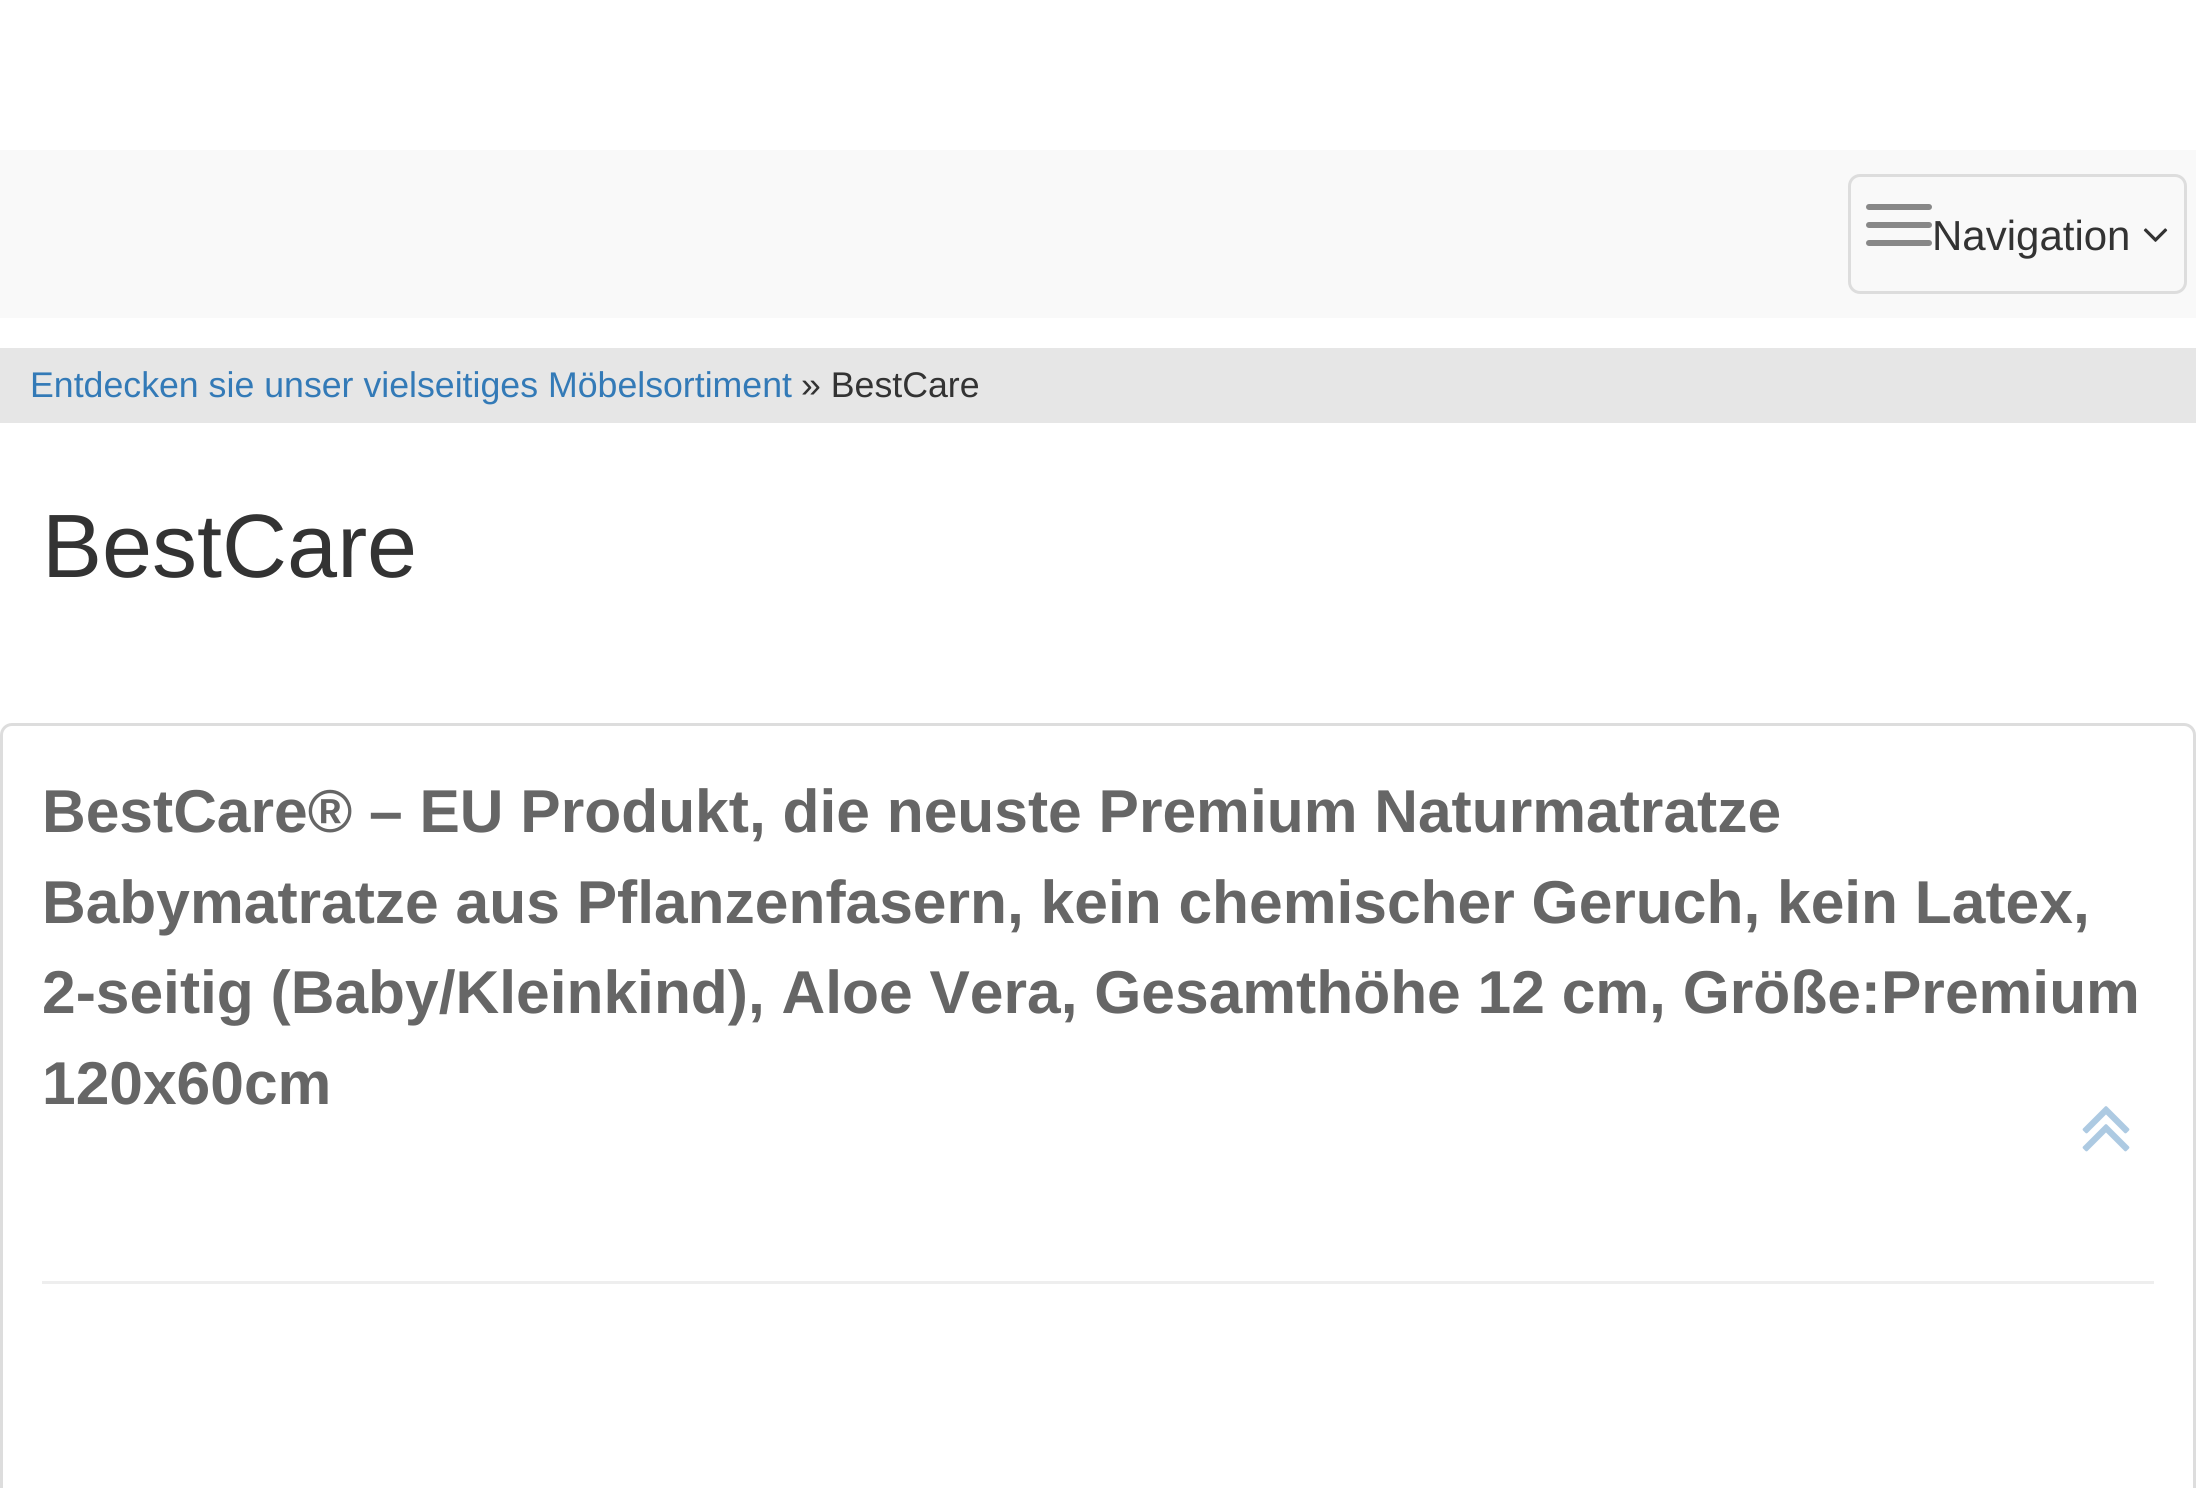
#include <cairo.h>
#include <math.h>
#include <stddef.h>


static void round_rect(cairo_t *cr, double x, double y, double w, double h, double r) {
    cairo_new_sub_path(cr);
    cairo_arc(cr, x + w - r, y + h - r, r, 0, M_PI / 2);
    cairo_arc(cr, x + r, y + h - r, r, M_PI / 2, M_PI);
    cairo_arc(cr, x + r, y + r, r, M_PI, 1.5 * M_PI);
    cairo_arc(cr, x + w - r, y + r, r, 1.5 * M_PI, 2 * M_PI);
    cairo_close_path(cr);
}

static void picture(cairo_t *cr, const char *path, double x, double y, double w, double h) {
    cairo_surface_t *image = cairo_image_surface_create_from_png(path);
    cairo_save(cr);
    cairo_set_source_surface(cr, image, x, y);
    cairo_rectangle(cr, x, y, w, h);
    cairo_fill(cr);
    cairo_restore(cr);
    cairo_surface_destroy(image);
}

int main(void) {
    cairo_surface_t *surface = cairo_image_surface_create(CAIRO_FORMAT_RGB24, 2196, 1488);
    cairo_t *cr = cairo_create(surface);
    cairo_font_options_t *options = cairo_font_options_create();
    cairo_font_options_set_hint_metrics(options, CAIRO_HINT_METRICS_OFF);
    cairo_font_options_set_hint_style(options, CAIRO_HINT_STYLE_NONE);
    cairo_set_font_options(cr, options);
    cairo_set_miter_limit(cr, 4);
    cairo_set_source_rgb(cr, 1, 1, 1);
    cairo_paint(cr);
    cairo_set_source_rgb(cr, 0.973, 0.973, 0.973);
    cairo_rectangle(cr, 0, 150, 2196, 168);
    cairo_fill(cr);
    round_rect(cr, 1849.5, 175.5, 336, 117, 10.5);
    cairo_set_source_rgb(cr, 0.867, 0.867, 0.867);
    cairo_set_line_width(cr, 3);
    cairo_stroke(cr);
    cairo_set_source_rgb(cr, 0.533, 0.533, 0.533);
    round_rect(cr, 1866, 204, 66, 6, 3);
    cairo_fill(cr);
    round_rect(cr, 1866, 222, 66, 6, 3);
    cairo_fill(cr);
    round_rect(cr, 1866, 240, 66, 6, 3);
    cairo_fill(cr);
    cairo_select_font_face(cr, "Liberation Sans", CAIRO_FONT_SLANT_NORMAL, CAIRO_FONT_WEIGHT_NORMAL);
    cairo_set_font_size(cr, 42);
    cairo_set_source_rgb(cr, 0.2, 0.2, 0.2);
    cairo_move_to(cr, 1932, 250);
    cairo_show_text(cr, "Navigation");
    picture(cr, "img1.png", 2143, 228, 25, 14);
    cairo_set_source_rgb(cr, 0.902, 0.902, 0.902);
    cairo_rectangle(cr, 0, 348, 2196, 75);
    cairo_fill(cr);
    cairo_set_font_size(cr, 35.7);
    cairo_set_source_rgb(cr, 0.2, 0.478, 0.718);
    cairo_move_to(cr, 30, 397);
    cairo_show_text(cr, "Entdecken sie unser vielseitiges Möbelsortiment");
    cairo_set_source_rgb(cr, 0.2, 0.2, 0.2);
    cairo_move_to(cr, 801, 397);
    cairo_show_text(cr, "» BestCare");
    cairo_set_font_size(cr, 90);
    cairo_move_to(cr, 42, 577);
    cairo_show_text(cr, "BestCare");
    round_rect(cr, 1.5, 724.5, 2193, 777, 10.5);
    cairo_set_source_rgb(cr, 0.867, 0.867, 0.867);
    cairo_stroke(cr);
    cairo_select_font_face(cr, "Liberation Sans", CAIRO_FONT_SLANT_NORMAL, CAIRO_FONT_WEIGHT_BOLD);
    cairo_set_font_size(cr, 60.5);
    cairo_set_source_rgb(cr, 0.4, 0.4, 0.4);
    cairo_move_to(cr, 42, 832);
    cairo_show_text(cr, "BestCare® – EU Produkt, die neuste Premium Naturmatratze");
    cairo_move_to(cr, 42, 923);
    cairo_show_text(cr, "Babymatratze aus Pflanzenfasern, kein chemischer Geruch, kein Latex,");
    cairo_move_to(cr, 42, 1013);
    cairo_show_text(cr, "2-seitig (Baby/Kleinkind), Aloe Vera, Gesamthöhe 12 cm, Größe:Premium");
    cairo_move_to(cr, 42, 1104);
    cairo_show_text(cr, "120x60cm");
    cairo_set_source_rgb(cr, 0.933, 0.933, 0.933);
    cairo_rectangle(cr, 42, 1281, 2112, 3);
    cairo_fill(cr);
    picture(cr, "img2.png", 2082, 1106, 48, 46);
    cairo_surface_write_to_png(surface, "page.png");
    cairo_font_options_destroy(options);
    cairo_destroy(cr);
    cairo_surface_destroy(surface);
    return 0;
}
